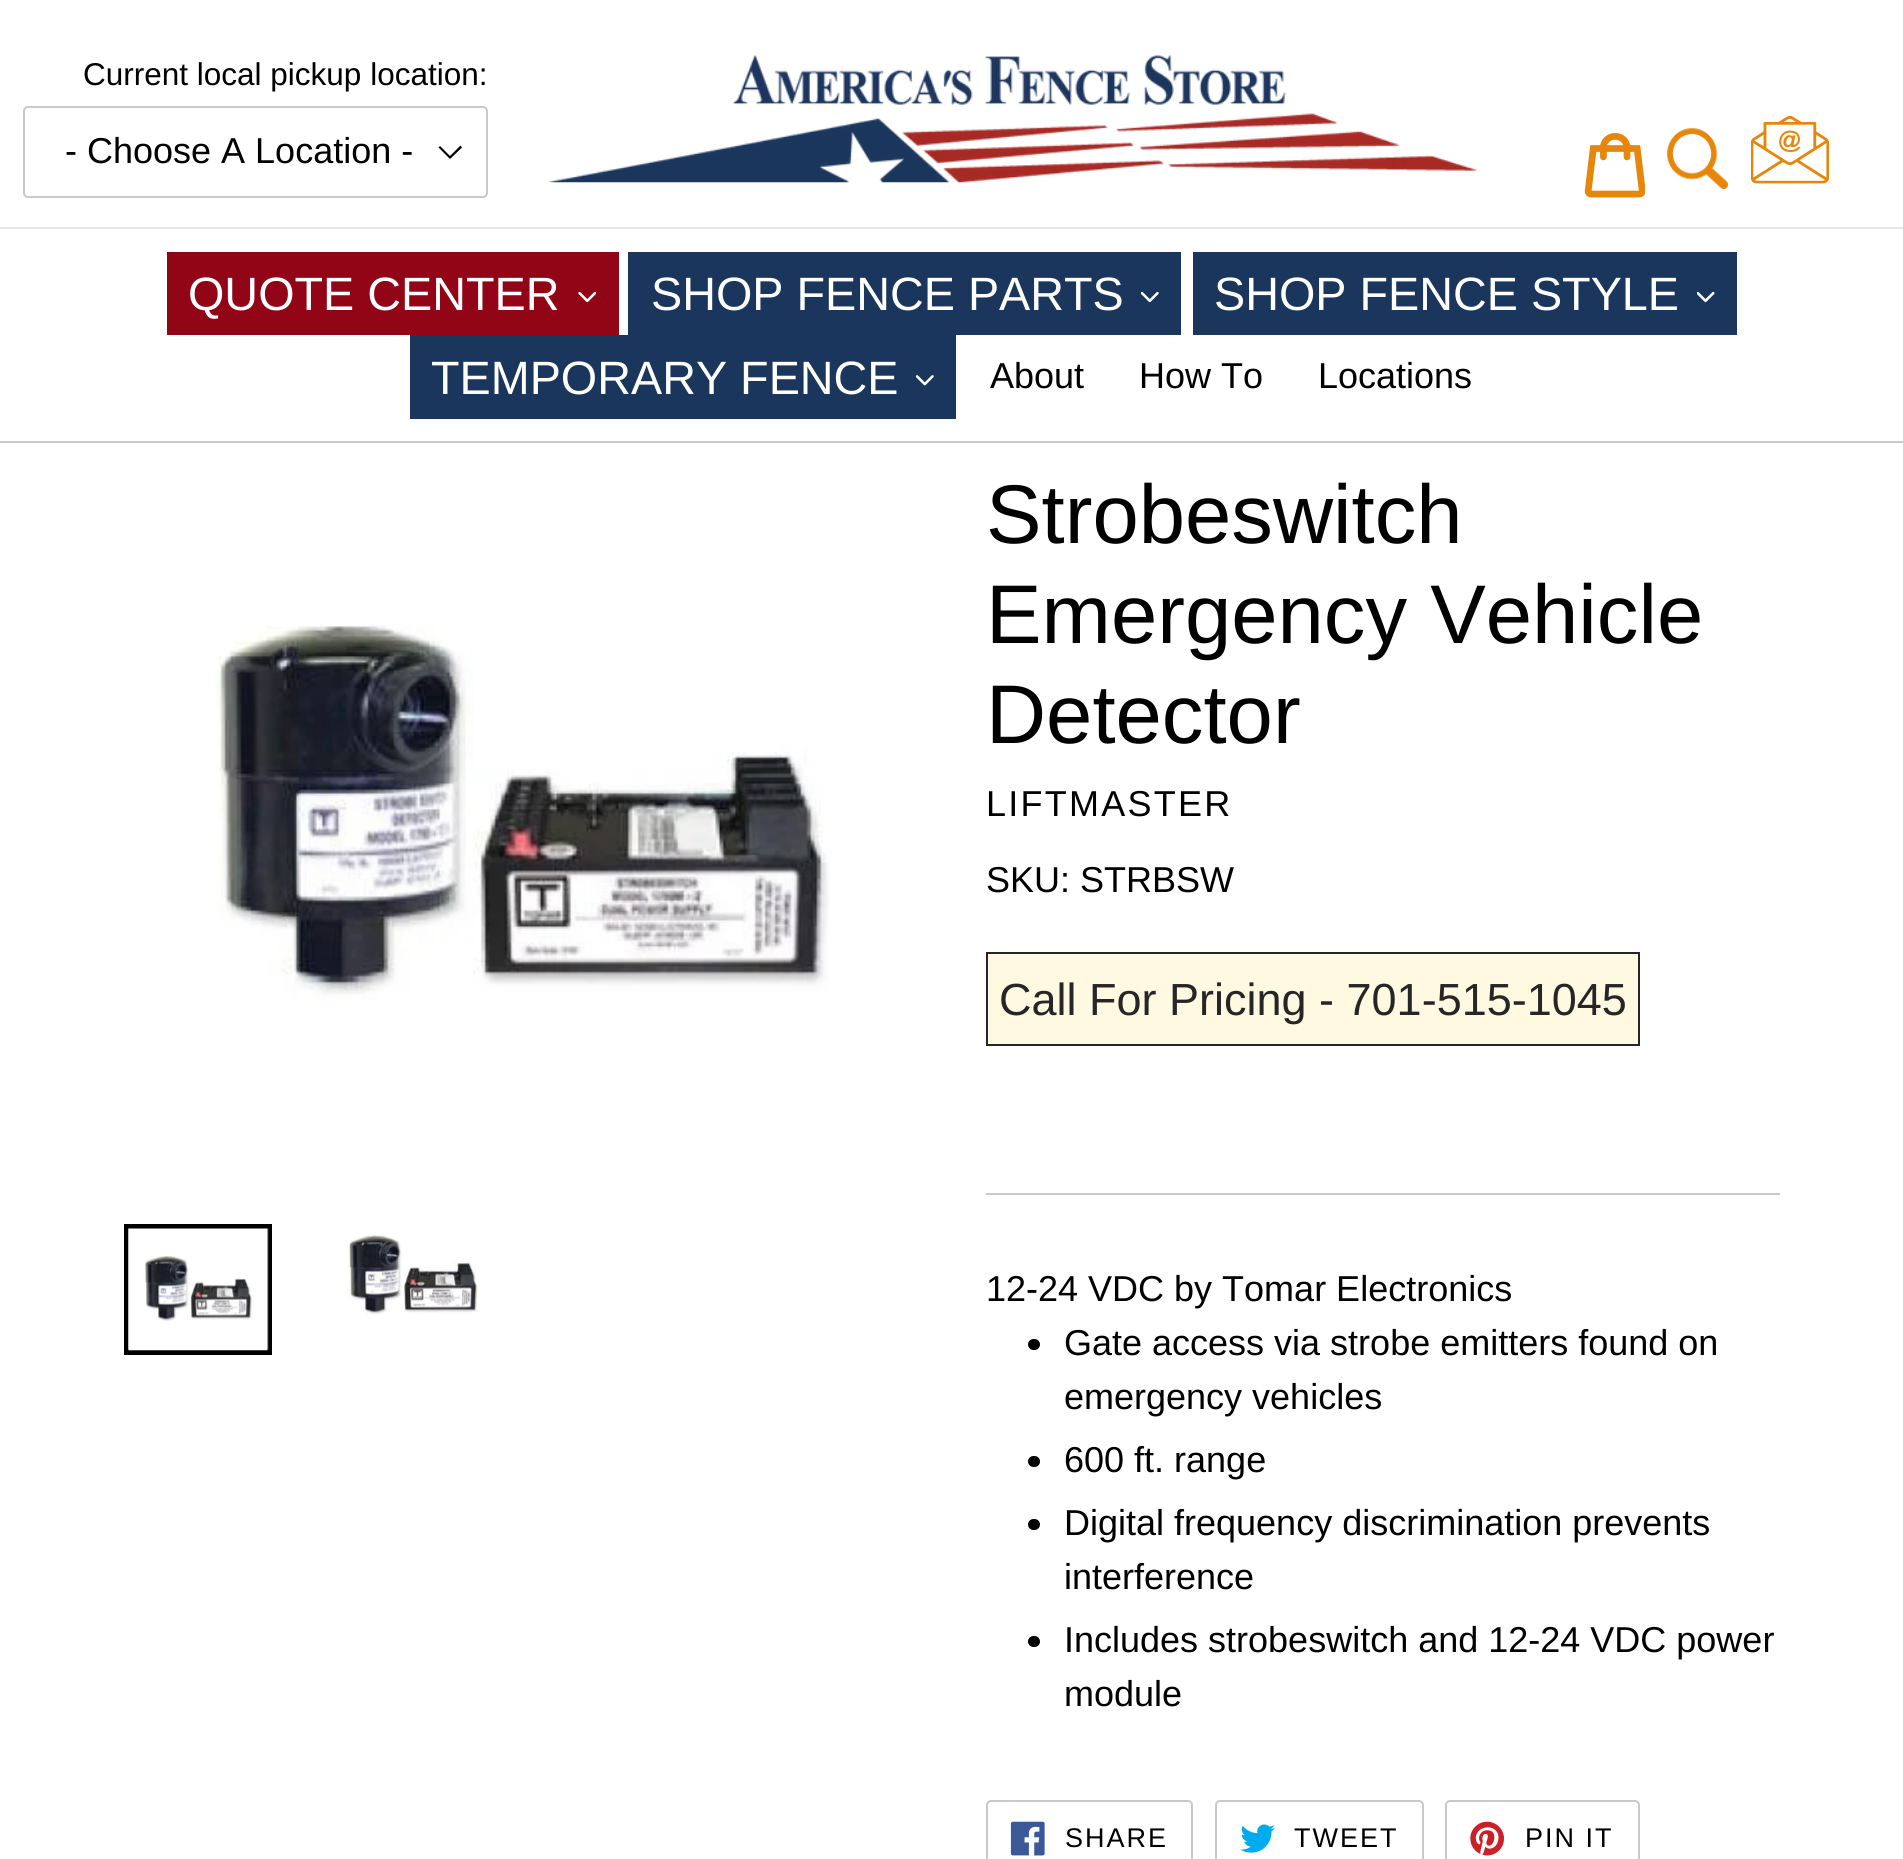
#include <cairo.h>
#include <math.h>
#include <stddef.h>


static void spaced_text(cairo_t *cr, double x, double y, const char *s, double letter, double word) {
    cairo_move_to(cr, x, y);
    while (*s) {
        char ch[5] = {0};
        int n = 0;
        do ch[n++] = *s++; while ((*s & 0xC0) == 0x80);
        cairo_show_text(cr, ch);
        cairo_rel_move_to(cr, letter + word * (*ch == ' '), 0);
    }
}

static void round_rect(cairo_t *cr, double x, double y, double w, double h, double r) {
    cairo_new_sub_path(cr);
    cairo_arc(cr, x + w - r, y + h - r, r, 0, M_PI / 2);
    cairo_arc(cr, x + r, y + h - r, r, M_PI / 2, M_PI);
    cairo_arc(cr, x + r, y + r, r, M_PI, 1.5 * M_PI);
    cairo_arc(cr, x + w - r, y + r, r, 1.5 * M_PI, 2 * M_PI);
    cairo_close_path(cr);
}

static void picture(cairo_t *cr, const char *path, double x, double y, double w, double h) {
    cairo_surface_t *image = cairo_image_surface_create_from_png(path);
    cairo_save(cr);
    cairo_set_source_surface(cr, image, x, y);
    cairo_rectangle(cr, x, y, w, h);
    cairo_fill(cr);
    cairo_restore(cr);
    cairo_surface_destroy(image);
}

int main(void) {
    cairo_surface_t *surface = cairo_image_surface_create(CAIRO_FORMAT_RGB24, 1903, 1859);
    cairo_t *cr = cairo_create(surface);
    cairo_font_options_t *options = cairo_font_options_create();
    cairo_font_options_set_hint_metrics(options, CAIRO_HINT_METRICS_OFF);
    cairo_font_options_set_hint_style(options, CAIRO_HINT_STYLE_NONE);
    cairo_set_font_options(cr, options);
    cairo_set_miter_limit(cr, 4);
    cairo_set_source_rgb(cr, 1, 1, 1);
    cairo_paint(cr);
    cairo_set_source_rgb(cr, 0.902, 0.902, 0.902);
    cairo_rectangle(cr, 0, 227, 1903, 2);
    cairo_fill(cr);
    cairo_select_font_face(cr, "Liberation Sans", CAIRO_FONT_SLANT_NORMAL, CAIRO_FONT_WEIGHT_NORMAL);
    cairo_set_font_size(cr, 31.5);
    cairo_set_source_rgb(cr, 0, 0, 0);
    cairo_move_to(cr, 83, 85);
    cairo_show_text(cr, "Current local pickup location:");
    cairo_new_path(cr);
    cairo_move_to(cr, 450, 159);
    cairo_line_to(cr, 438.5, 147.5);
    cairo_line_to(cr, 440, 146);
    cairo_line_to(cr, 450, 156);
    cairo_line_to(cr, 460.5, 145.5);
    cairo_line_to(cr, 462, 147.5);
    cairo_close_path(cr);
    cairo_fill(cr);
    round_rect(cr, 24, 107, 463, 90, 4);
    cairo_set_source_rgb(cr, 0.788, 0.788, 0.788);
    cairo_stroke(cr);
    cairo_set_font_size(cr, 36);
    cairo_set_source_rgb(cr, 0, 0, 0);
    cairo_move_to(cr, 65, 163);
    cairo_show_text(cr, "- Choose A Location -");
    picture(cr, "img1.png", 549, 55, 928, 128);
    picture(cr, "img2.png", 1584, 133, 61, 65);
    picture(cr, "img3.png", 1667, 128, 61, 61);
    picture(cr, "img4.png", 1751, 116, 78, 68);
    cairo_set_source_rgb(cr, 0.788, 0.788, 0.788);
    cairo_rectangle(cr, 0, 441, 1903, 2);
    cairo_fill(cr);
    cairo_set_source_rgb(cr, 0.569, 0.02, 0.086);
    cairo_rectangle(cr, 167, 252, 452, 83);
    cairo_fill(cr);
    cairo_set_font_size(cr, 46.75);
    cairo_set_source_rgb(cr, 1, 1, 1);
    cairo_move_to(cr, 188, 310);
    cairo_show_text(cr, "QUOTE CENTER");
    picture(cr, "img5.png", 578, 291, 18, 12);
    cairo_set_source_rgb(cr, 0.102, 0.212, 0.365);
    cairo_rectangle(cr, 628, 252, 553, 83);
    cairo_fill(cr);
    cairo_set_source_rgb(cr, 1, 1, 1);
    cairo_move_to(cr, 651, 310);
    cairo_show_text(cr, "SHOP FENCE PARTS");
    picture(cr, "img6.png", 1141, 291, 18, 12);
    cairo_set_source_rgb(cr, 0.102, 0.212, 0.365);
    cairo_rectangle(cr, 1193, 252, 544, 83);
    cairo_fill(cr);
    cairo_set_source_rgb(cr, 1, 1, 1);
    cairo_move_to(cr, 1214, 310);
    cairo_show_text(cr, "SHOP FENCE STYLE");
    picture(cr, "img7.png", 1697, 291, 18, 12);
    cairo_set_source_rgb(cr, 0.102, 0.212, 0.365);
    cairo_rectangle(cr, 410, 335, 546, 84);
    cairo_fill(cr);
    cairo_set_source_rgb(cr, 1, 1, 1);
    cairo_move_to(cr, 431, 394);
    cairo_show_text(cr, "TEMPORARY FENCE");
    picture(cr, "img8.png", 916, 375, 18, 11);
    cairo_set_font_size(cr, 36);
    cairo_set_source_rgb(cr, 0, 0, 0);
    cairo_move_to(cr, 990, 388);
    cairo_show_text(cr, "About");
    cairo_move_to(cr, 1139, 388);
    cairo_show_text(cr, "How To");
    cairo_move_to(cr, 1318, 388);
    cairo_show_text(cr, "Locations");
    picture(cr, "img9.png", 216, 624, 614, 377);
    cairo_rectangle(cr, 126.5, 1226.5, 143, 126);
    cairo_set_line_width(cr, 5);
    cairo_stroke(cr);
    picture(cr, "img10.png", 128, 1228, 141, 123);
    picture(cr, "img11.png", 348, 1234, 130, 81);
    cairo_set_font_size(cr, 83.25);
    cairo_move_to(cr, 986, 543);
    cairo_show_text(cr, "Strobeswitch");
    cairo_move_to(cr, 986, 643);
    cairo_show_text(cr, "Emergency Vehicle");
    cairo_move_to(cr, 986, 743);
    cairo_show_text(cr, "Detector");
    cairo_set_font_size(cr, 36);
    spaced_text(cr, 986, 816, "LIFTMASTER", 2.25, 0);
    cairo_move_to(cr, 986, 892);
    cairo_show_text(cr, "SKU: STRBSW");
    cairo_set_source_rgb(cr, 1, 0.976, 0.882);
    cairo_rectangle(cr, 987, 953, 652, 92);
    cairo_fill_preserve(cr);
    cairo_set_source_rgb(cr, 0.149, 0.149, 0.149);
    cairo_set_line_width(cr, 2);
    cairo_stroke(cr);
    cairo_set_font_size(cr, 45);
    cairo_move_to(cr, 999, 1015);
    cairo_show_text(cr, "Call For Pricing - 701-515-1045");
    cairo_set_source_rgb(cr, 0.788, 0.788, 0.788);
    cairo_rectangle(cr, 986, 1193, 794, 2);
    cairo_fill(cr);
    cairo_set_font_size(cr, 36);
    cairo_set_source_rgb(cr, 0, 0, 0);
    cairo_move_to(cr, 986, 1301);
    cairo_show_text(cr, "12-24 VDC by Tomar Electronics");
    round_rect(cr, 1028, 1339, 12, 11, 5.5);
    cairo_fill(cr);
    cairo_move_to(cr, 1064, 1355);
    cairo_show_text(cr, "Gate access via strobe emitters found on");
    cairo_move_to(cr, 1064, 1409);
    cairo_show_text(cr, "emergency vehicles");
    round_rect(cr, 1028, 1456, 12, 11, 5.5);
    cairo_fill(cr);
    cairo_move_to(cr, 1064, 1472);
    cairo_show_text(cr, "600 ft. range");
    round_rect(cr, 1028, 1519, 12, 11, 5.5);
    cairo_fill(cr);
    cairo_move_to(cr, 1064, 1535);
    cairo_show_text(cr, "Digital frequency discrimination prevents");
    cairo_move_to(cr, 1064, 1589);
    cairo_show_text(cr, "interference");
    round_rect(cr, 1028, 1636, 12, 11, 5.5);
    cairo_fill(cr);
    cairo_move_to(cr, 1064, 1652);
    cairo_show_text(cr, "Includes strobeswitch and 12-24 VDC power");
    cairo_move_to(cr, 1064, 1706);
    cairo_show_text(cr, "module");
    round_rect(cr, 987, 1801, 205, 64, 4);
    cairo_set_source_rgb(cr, 0.788, 0.788, 0.788);
    cairo_stroke(cr);
    picture(cr, "img12.png", 1010, 1821, 35, 35);
    cairo_set_font_size(cr, 27);
    cairo_set_source_rgb(cr, 0, 0, 0);
    spaced_text(cr, 1065, 1847, "SHARE", 2, 0);
    round_rect(cr, 1216, 1801, 207, 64, 4);
    cairo_set_source_rgb(cr, 0.788, 0.788, 0.788);
    cairo_stroke(cr);
    picture(cr, "img13.png", 1240, 1824, 35, 29);
    cairo_set_source_rgb(cr, 0, 0, 0);
    spaced_text(cr, 1294, 1847, "TWEET", 2, 0);
    round_rect(cr, 1446, 1801, 193, 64, 4);
    cairo_set_source_rgb(cr, 0.788, 0.788, 0.788);
    cairo_stroke(cr);
    picture(cr, "img14.png", 1470, 1821, 34, 35);
    cairo_set_source_rgb(cr, 0, 0, 0);
    spaced_text(cr, 1525, 1847, "PIN IT", 2, 0);
    cairo_surface_write_to_png(surface, "page.png");
    cairo_font_options_destroy(options);
    cairo_destroy(cr);
    cairo_surface_destroy(surface);
    return 0;
}
